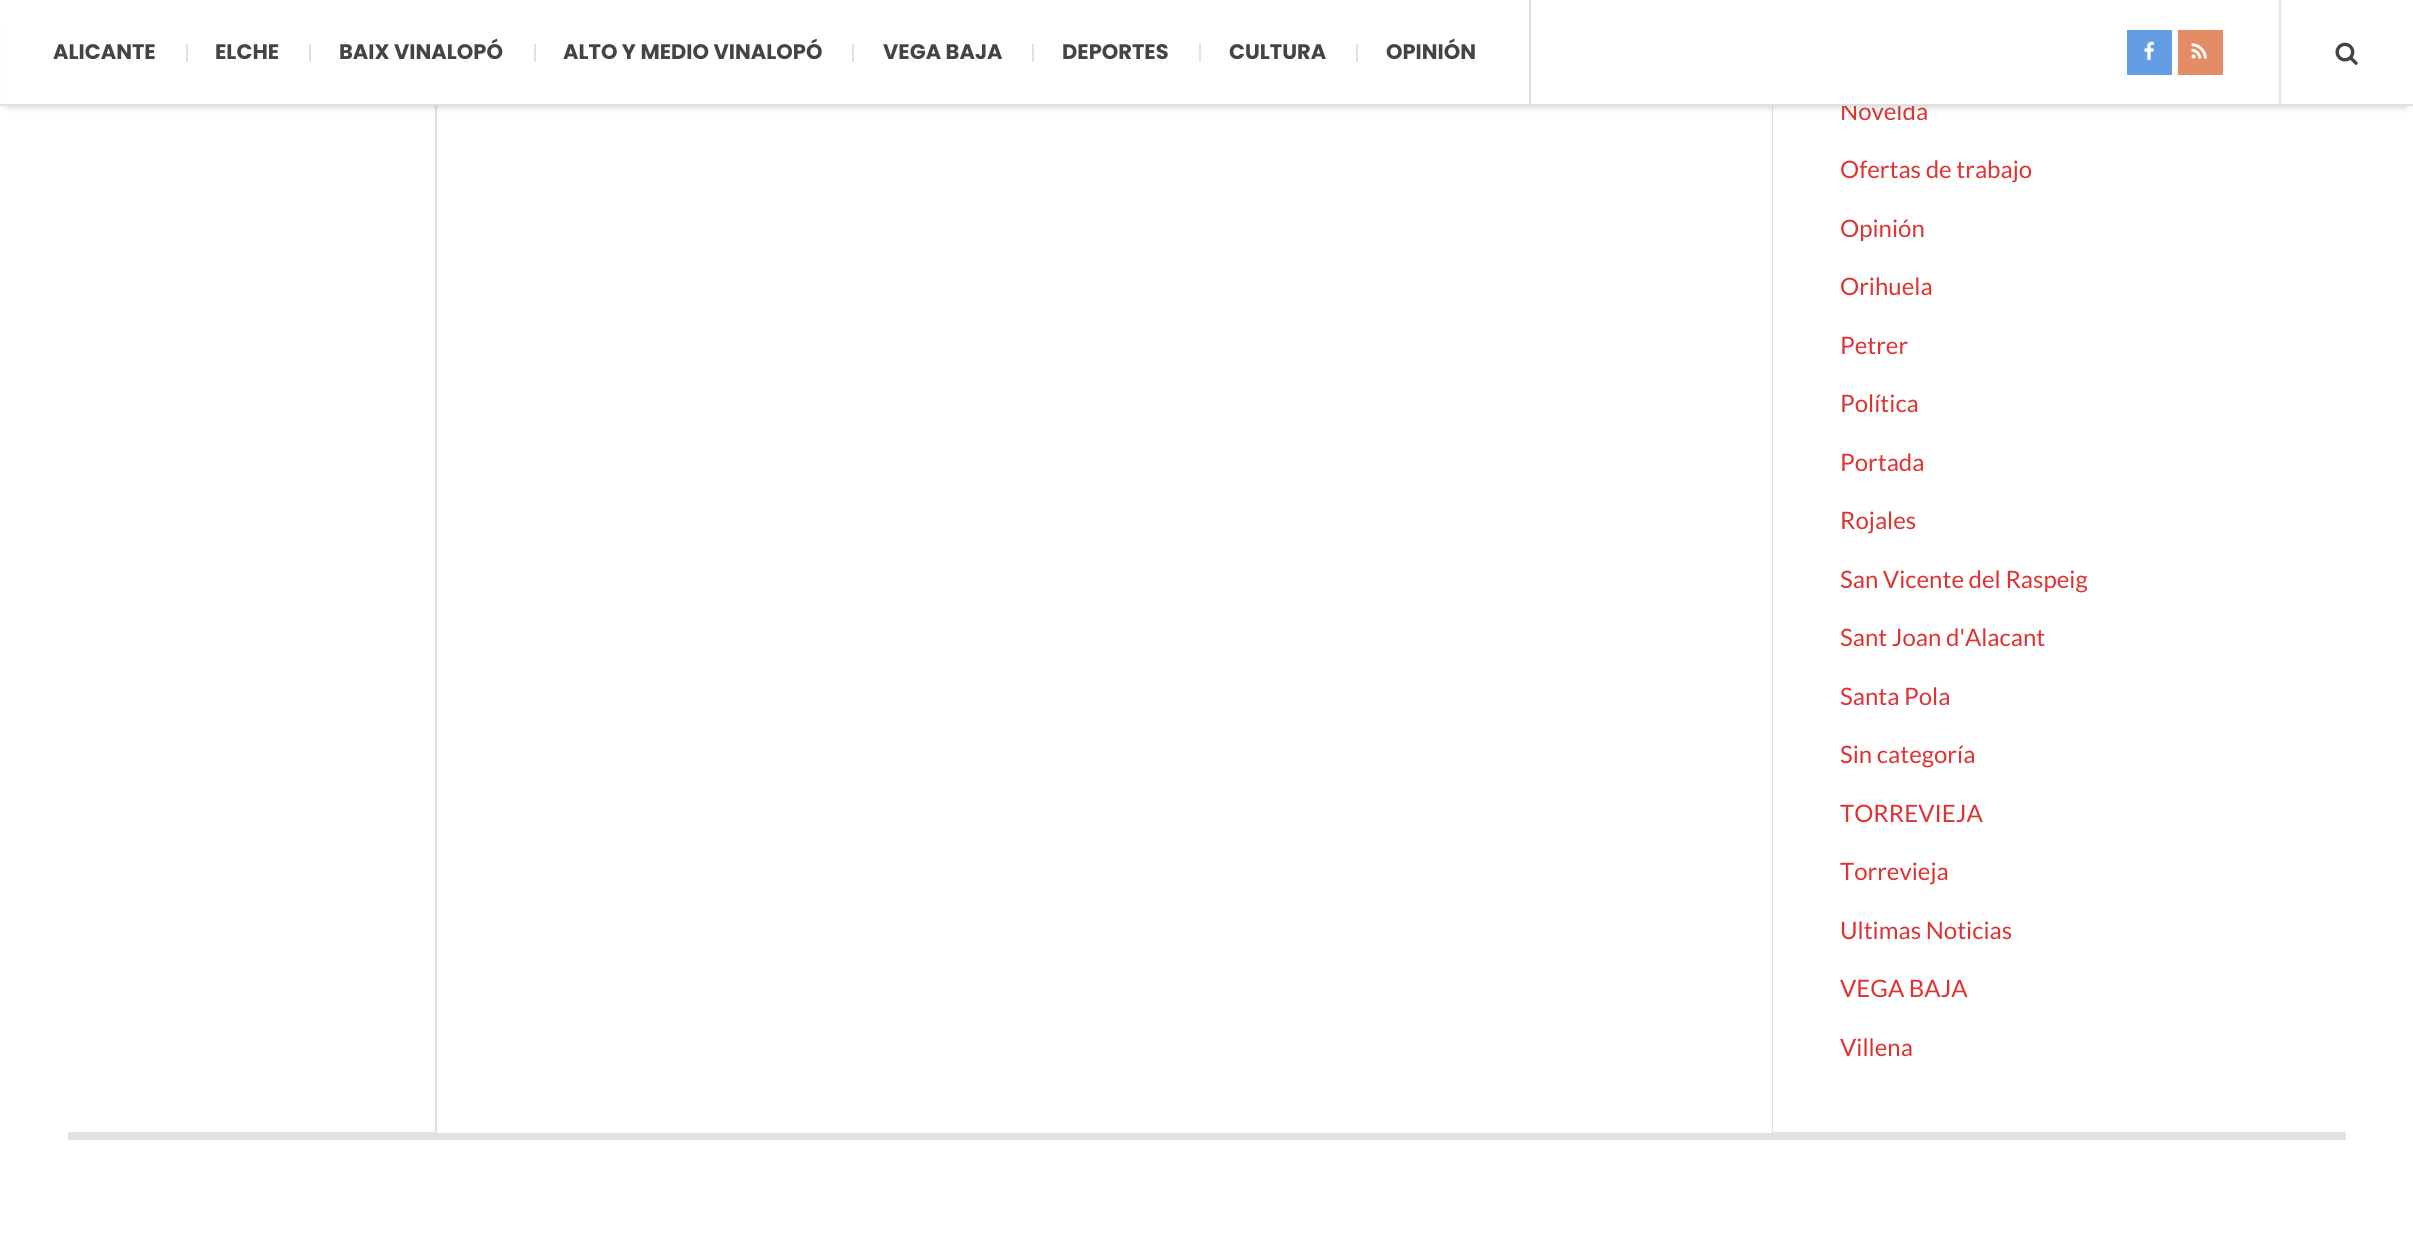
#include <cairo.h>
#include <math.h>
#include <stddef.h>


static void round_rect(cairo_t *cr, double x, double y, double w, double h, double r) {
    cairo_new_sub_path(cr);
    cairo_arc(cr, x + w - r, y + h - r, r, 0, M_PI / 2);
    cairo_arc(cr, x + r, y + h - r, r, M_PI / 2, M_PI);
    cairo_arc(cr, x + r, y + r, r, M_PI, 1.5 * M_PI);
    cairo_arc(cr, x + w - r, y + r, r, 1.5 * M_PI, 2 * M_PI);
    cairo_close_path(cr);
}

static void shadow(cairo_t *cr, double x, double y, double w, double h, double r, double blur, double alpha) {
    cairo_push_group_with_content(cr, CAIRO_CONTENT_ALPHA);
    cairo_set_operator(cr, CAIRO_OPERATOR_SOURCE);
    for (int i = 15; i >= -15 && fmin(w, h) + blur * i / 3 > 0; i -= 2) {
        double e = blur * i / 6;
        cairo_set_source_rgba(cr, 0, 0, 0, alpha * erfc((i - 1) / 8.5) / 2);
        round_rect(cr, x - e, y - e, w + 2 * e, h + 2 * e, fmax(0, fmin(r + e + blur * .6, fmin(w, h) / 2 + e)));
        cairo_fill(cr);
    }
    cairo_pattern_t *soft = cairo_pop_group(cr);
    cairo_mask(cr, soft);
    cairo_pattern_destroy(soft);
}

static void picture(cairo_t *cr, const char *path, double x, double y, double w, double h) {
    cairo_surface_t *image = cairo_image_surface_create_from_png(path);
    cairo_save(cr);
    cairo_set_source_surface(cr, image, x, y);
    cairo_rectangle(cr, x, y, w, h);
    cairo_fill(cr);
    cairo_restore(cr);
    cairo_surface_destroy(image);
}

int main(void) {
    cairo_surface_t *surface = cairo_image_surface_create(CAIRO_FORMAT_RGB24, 2413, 1240);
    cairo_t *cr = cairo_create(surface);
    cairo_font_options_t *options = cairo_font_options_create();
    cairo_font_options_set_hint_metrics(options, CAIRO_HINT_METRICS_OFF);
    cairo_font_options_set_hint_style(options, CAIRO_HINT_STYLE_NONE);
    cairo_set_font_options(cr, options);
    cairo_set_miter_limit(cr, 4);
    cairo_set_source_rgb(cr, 1, 1, 1);
    cairo_paint(cr);
    cairo_set_source_rgb(cr, 0.882, 0.882, 0.882);
    cairo_new_path(cr);
    cairo_move_to(cr, 69, 1132);
    cairo_line_to(cr, 69, 1133);
    cairo_line_to(cr, 437, 1133);
    cairo_line_to(cr, 437, -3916);
    cairo_line_to(cr, 435, -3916);
    cairo_line_to(cr, 435, 1132);
    cairo_close_path(cr);
    cairo_fill(cr);
    cairo_new_path(cr);
    cairo_move_to(cr, 1772, -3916);
    cairo_line_to(cr, 1772, 1133);
    cairo_line_to(cr, 2345, 1133);
    cairo_line_to(cr, 2345, 1132);
    cairo_line_to(cr, 1773, 1132);
    cairo_line_to(cr, 1773, -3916);
    cairo_close_path(cr);
    cairo_fill(cr);
    cairo_set_source_rgb(cr, 0, 0, 0);
    shadow(cr, 9, 18, 2396, 87, 0, 4.5, 0.3);
    cairo_select_font_face(cr, "Lato", CAIRO_FONT_SLANT_NORMAL, CAIRO_FONT_WEIGHT_NORMAL);
    cairo_set_font_size(cr, 24);
    cairo_set_source_rgb(cr, 0.867, 0.2, 0.2);
    cairo_move_to(cr, 1840, 120);
    cairo_show_text(cr, "Novelda");
    cairo_set_source_rgb(cr, 1, 1, 1);
    cairo_rectangle(cr, 1, 0, 2412, 104);
    cairo_fill(cr);
    cairo_set_source_rgb(cr, 0.882, 0.882, 0.882);
    cairo_rectangle(cr, 0, 104, 2413, 2);
    cairo_fill(cr);
    cairo_rectangle(cr, 1529, 0, 2, 104);
    cairo_fill(cr);
    cairo_select_font_face(cr, "Poppins", CAIRO_FONT_SLANT_NORMAL, CAIRO_FONT_WEIGHT_BOLD);
    cairo_set_font_size(cr, 21);
    cairo_set_source_rgb(cr, 0.267, 0.267, 0.267);
    cairo_move_to(cr, 53, 59);
    cairo_show_text(cr, "ALICANTE");
    cairo_set_source_rgb(cr, 0.882, 0.882, 0.882);
    cairo_rectangle(cr, 186, 44, 2, 18);
    cairo_fill(cr);
    cairo_set_source_rgb(cr, 0.267, 0.267, 0.267);
    cairo_move_to(cr, 215, 59);
    cairo_show_text(cr, "ELCHE");
    cairo_set_source_rgb(cr, 0.882, 0.882, 0.882);
    cairo_rectangle(cr, 309, 44, 2, 18);
    cairo_fill(cr);
    cairo_set_source_rgb(cr, 0.267, 0.267, 0.267);
    cairo_move_to(cr, 339, 59);
    cairo_show_text(cr, "BAIX VINALOPÓ");
    cairo_set_source_rgb(cr, 0.882, 0.882, 0.882);
    cairo_rectangle(cr, 534, 44, 2, 18);
    cairo_fill(cr);
    cairo_set_source_rgb(cr, 0.267, 0.267, 0.267);
    cairo_move_to(cr, 563, 59);
    cairo_show_text(cr, "ALTO Y MEDIO VINALOPÓ");
    cairo_set_source_rgb(cr, 0.882, 0.882, 0.882);
    cairo_rectangle(cr, 852, 44, 2, 18);
    cairo_fill(cr);
    cairo_set_source_rgb(cr, 0.267, 0.267, 0.267);
    cairo_move_to(cr, 883, 59);
    cairo_show_text(cr, "VEGA BAJA");
    cairo_set_source_rgb(cr, 0.882, 0.882, 0.882);
    cairo_rectangle(cr, 1032, 44, 2, 18);
    cairo_fill(cr);
    cairo_set_source_rgb(cr, 0.267, 0.267, 0.267);
    cairo_move_to(cr, 1062, 59);
    cairo_show_text(cr, "DEPORTES");
    cairo_set_source_rgb(cr, 0.882, 0.882, 0.882);
    cairo_rectangle(cr, 1199, 44, 2, 18);
    cairo_fill(cr);
    cairo_set_source_rgb(cr, 0.267, 0.267, 0.267);
    cairo_move_to(cr, 1229, 59);
    cairo_show_text(cr, "CULTURA");
    cairo_set_source_rgb(cr, 0.882, 0.882, 0.882);
    cairo_rectangle(cr, 1356, 44, 2, 18);
    cairo_fill(cr);
    cairo_set_source_rgb(cr, 0.267, 0.267, 0.267);
    cairo_move_to(cr, 1386, 59);
    cairo_show_text(cr, "OPINIÓN");
    cairo_set_source_rgb(cr, 0.396, 0.616, 0.89);
    cairo_rectangle(cr, 2127, 30, 45, 45);
    cairo_fill(cr);
    picture(cr, "img1.png", 2144, 41, 10, 19);
    cairo_set_source_rgb(cr, 0.89, 0.549, 0.396);
    cairo_rectangle(cr, 2178, 30, 45, 45);
    cairo_fill(cr);
    picture(cr, "img2.png", 2191, 43, 16, 16);
    cairo_set_source_rgb(cr, 0.882, 0.882, 0.882);
    cairo_rectangle(cr, 2279, 0, 2, 104);
    cairo_fill(cr);
    picture(cr, "img3.png", 2335, 42, 23, 23);
    cairo_rectangle(cr, 68, 1133, 2278, 7);
    cairo_fill(cr);
    cairo_select_font_face(cr, "Lato", CAIRO_FONT_SLANT_NORMAL, CAIRO_FONT_WEIGHT_NORMAL);
    cairo_set_font_size(cr, 24);
    cairo_set_source_rgb(cr, 0.867, 0.2, 0.2);
    cairo_move_to(cr, 1840, 178);
    cairo_show_text(cr, "Ofertas de trabajo");
    cairo_move_to(cr, 1840, 237);
    cairo_show_text(cr, "Opinión");
    cairo_move_to(cr, 1840, 295);
    cairo_show_text(cr, "Orihuela");
    cairo_move_to(cr, 1840, 354);
    cairo_show_text(cr, "Petrer");
    cairo_move_to(cr, 1840, 412);
    cairo_show_text(cr, "Política");
    cairo_move_to(cr, 1840, 471);
    cairo_show_text(cr, "Portada");
    cairo_move_to(cr, 1840, 529);
    cairo_show_text(cr, "Rojales");
    cairo_move_to(cr, 1840, 588);
    cairo_show_text(cr, "San Vicente del Raspeig");
    cairo_move_to(cr, 1840, 646);
    cairo_show_text(cr, "Sant Joan d'Alacant");
    cairo_move_to(cr, 1840, 705);
    cairo_show_text(cr, "Santa Pola");
    cairo_move_to(cr, 1840, 763);
    cairo_show_text(cr, "Sin categoría");
    cairo_move_to(cr, 1840, 822);
    cairo_show_text(cr, "TORREVIEJA");
    cairo_move_to(cr, 1840, 880);
    cairo_show_text(cr, "Torrevieja");
    cairo_move_to(cr, 1840, 939);
    cairo_show_text(cr, "Ultimas Noticias");
    cairo_move_to(cr, 1840, 997);
    cairo_show_text(cr, "VEGA BAJA");
    cairo_move_to(cr, 1840, 1056);
    cairo_show_text(cr, "Villena");
    cairo_surface_write_to_png(surface, "page.png");
    cairo_font_options_destroy(options);
    cairo_destroy(cr);
    cairo_surface_destroy(surface);
    return 0;
}
